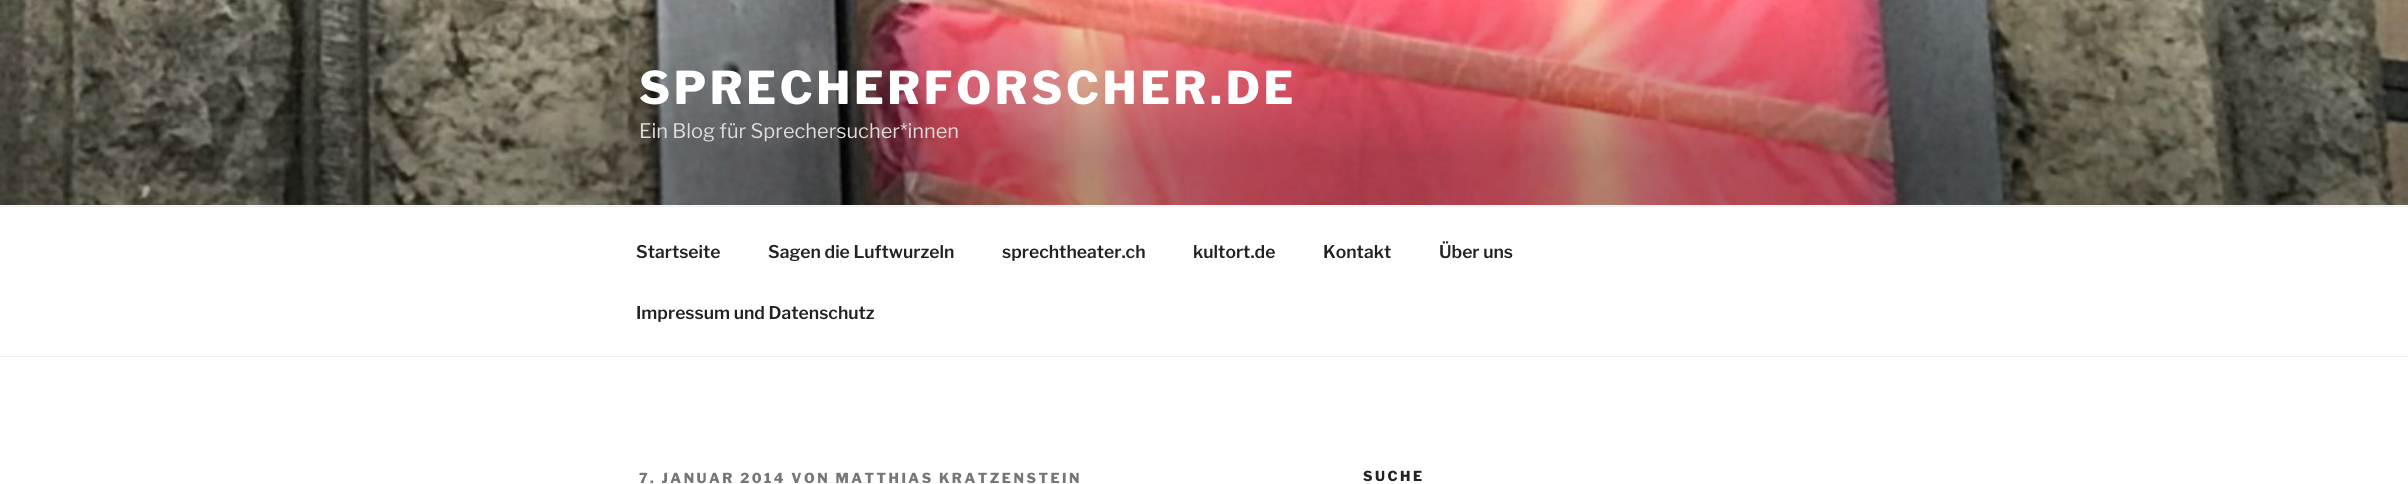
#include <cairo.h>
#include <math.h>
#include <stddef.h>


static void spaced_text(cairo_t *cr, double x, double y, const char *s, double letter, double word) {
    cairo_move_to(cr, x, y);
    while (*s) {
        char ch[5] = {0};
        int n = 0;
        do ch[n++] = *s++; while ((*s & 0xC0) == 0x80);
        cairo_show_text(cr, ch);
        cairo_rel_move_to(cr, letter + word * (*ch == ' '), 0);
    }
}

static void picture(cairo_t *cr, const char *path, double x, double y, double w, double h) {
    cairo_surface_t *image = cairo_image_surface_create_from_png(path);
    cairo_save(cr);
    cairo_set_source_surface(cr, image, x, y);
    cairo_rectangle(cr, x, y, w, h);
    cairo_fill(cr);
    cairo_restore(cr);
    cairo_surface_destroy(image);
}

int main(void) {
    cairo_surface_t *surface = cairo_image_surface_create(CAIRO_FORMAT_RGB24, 2408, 484);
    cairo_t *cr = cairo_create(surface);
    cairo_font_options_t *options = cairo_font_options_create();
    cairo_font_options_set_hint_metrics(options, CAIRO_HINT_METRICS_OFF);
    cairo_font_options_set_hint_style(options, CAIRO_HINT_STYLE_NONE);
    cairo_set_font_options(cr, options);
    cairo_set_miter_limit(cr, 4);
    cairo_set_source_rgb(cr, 1, 1, 1);
    cairo_paint(cr);
    cairo_set_source_rgb(cr, 0.98, 0.98, 0.98);
    cairo_rectangle(cr, 0, 205, 2408, 1);
    cairo_fill(cr);
    picture(cr, "img1.png", 0, 0, 2408, 205);
    cairo_select_font_face(cr, "Libre Franklin Thin", CAIRO_FONT_SLANT_NORMAL, CAIRO_FONT_WEIGHT_NORMAL);
    cairo_set_font_size(cr, 45);
    cairo_set_source_rgb(cr, 1, 1, 1);
    spaced_text(cr, 639, 104, "SPRECHERFORSCHER.DE", 3.6, 0);
    cairo_select_font_face(cr, "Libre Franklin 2 Thin", CAIRO_FONT_SLANT_NORMAL, CAIRO_FONT_WEIGHT_NORMAL);
    cairo_set_font_size(cr, 20);
    cairo_set_source_rgb(cr, 0.878, 0.859, 0.863);
    cairo_move_to(cr, 639, 138);
    cairo_show_text(cr, "Ein Blog für Sprechersucher*innen");
    cairo_set_source_rgb(cr, 0.933, 0.933, 0.933);
    cairo_rectangle(cr, 0, 206, 2408, 1);
    cairo_fill(cr);
    cairo_rectangle(cr, 0, 356, 2408, 1);
    cairo_fill(cr);
    cairo_select_font_face(cr, "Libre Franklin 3 Thin", CAIRO_FONT_SLANT_NORMAL, CAIRO_FONT_WEIGHT_NORMAL);
    cairo_set_font_size(cr, 17.5);
    cairo_set_source_rgb(cr, 0.133, 0.133, 0.133);
    cairo_move_to(cr, 636, 258);
    cairo_show_text(cr, "Startseite");
    cairo_move_to(cr, 768, 258);
    cairo_show_text(cr, "Sagen die Luftwurzeln");
    cairo_move_to(cr, 1002, 258);
    cairo_show_text(cr, "sprechtheater.ch");
    cairo_move_to(cr, 1193, 258);
    cairo_show_text(cr, "kultort.de");
    cairo_move_to(cr, 1323, 258);
    cairo_show_text(cr, "Kontakt");
    cairo_move_to(cr, 1439, 258);
    cairo_show_text(cr, "Über uns");
    cairo_move_to(cr, 636, 319);
    cairo_show_text(cr, "Impressum und Datenschutz");
    cairo_select_font_face(cr, "Libre Franklin Thin", CAIRO_FONT_SLANT_NORMAL, CAIRO_FONT_WEIGHT_NORMAL);
    cairo_set_font_size(cr, 13.75);
    cairo_set_source_rgb(cr, 0.463, 0.463, 0.463);
    spaced_text(cr, 639, 483, "7. JANUAR 2014 VON MATTHIAS KRATZENSTEIN", 2.5, 0);
    cairo_set_source_rgb(cr, 0.133, 0.133, 0.133);
    spaced_text(cr, 1363, 481, "SUCHE", 2.5, 0);
    cairo_surface_write_to_png(surface, "page.png");
    cairo_font_options_destroy(options);
    cairo_destroy(cr);
    cairo_surface_destroy(surface);
    return 0;
}
